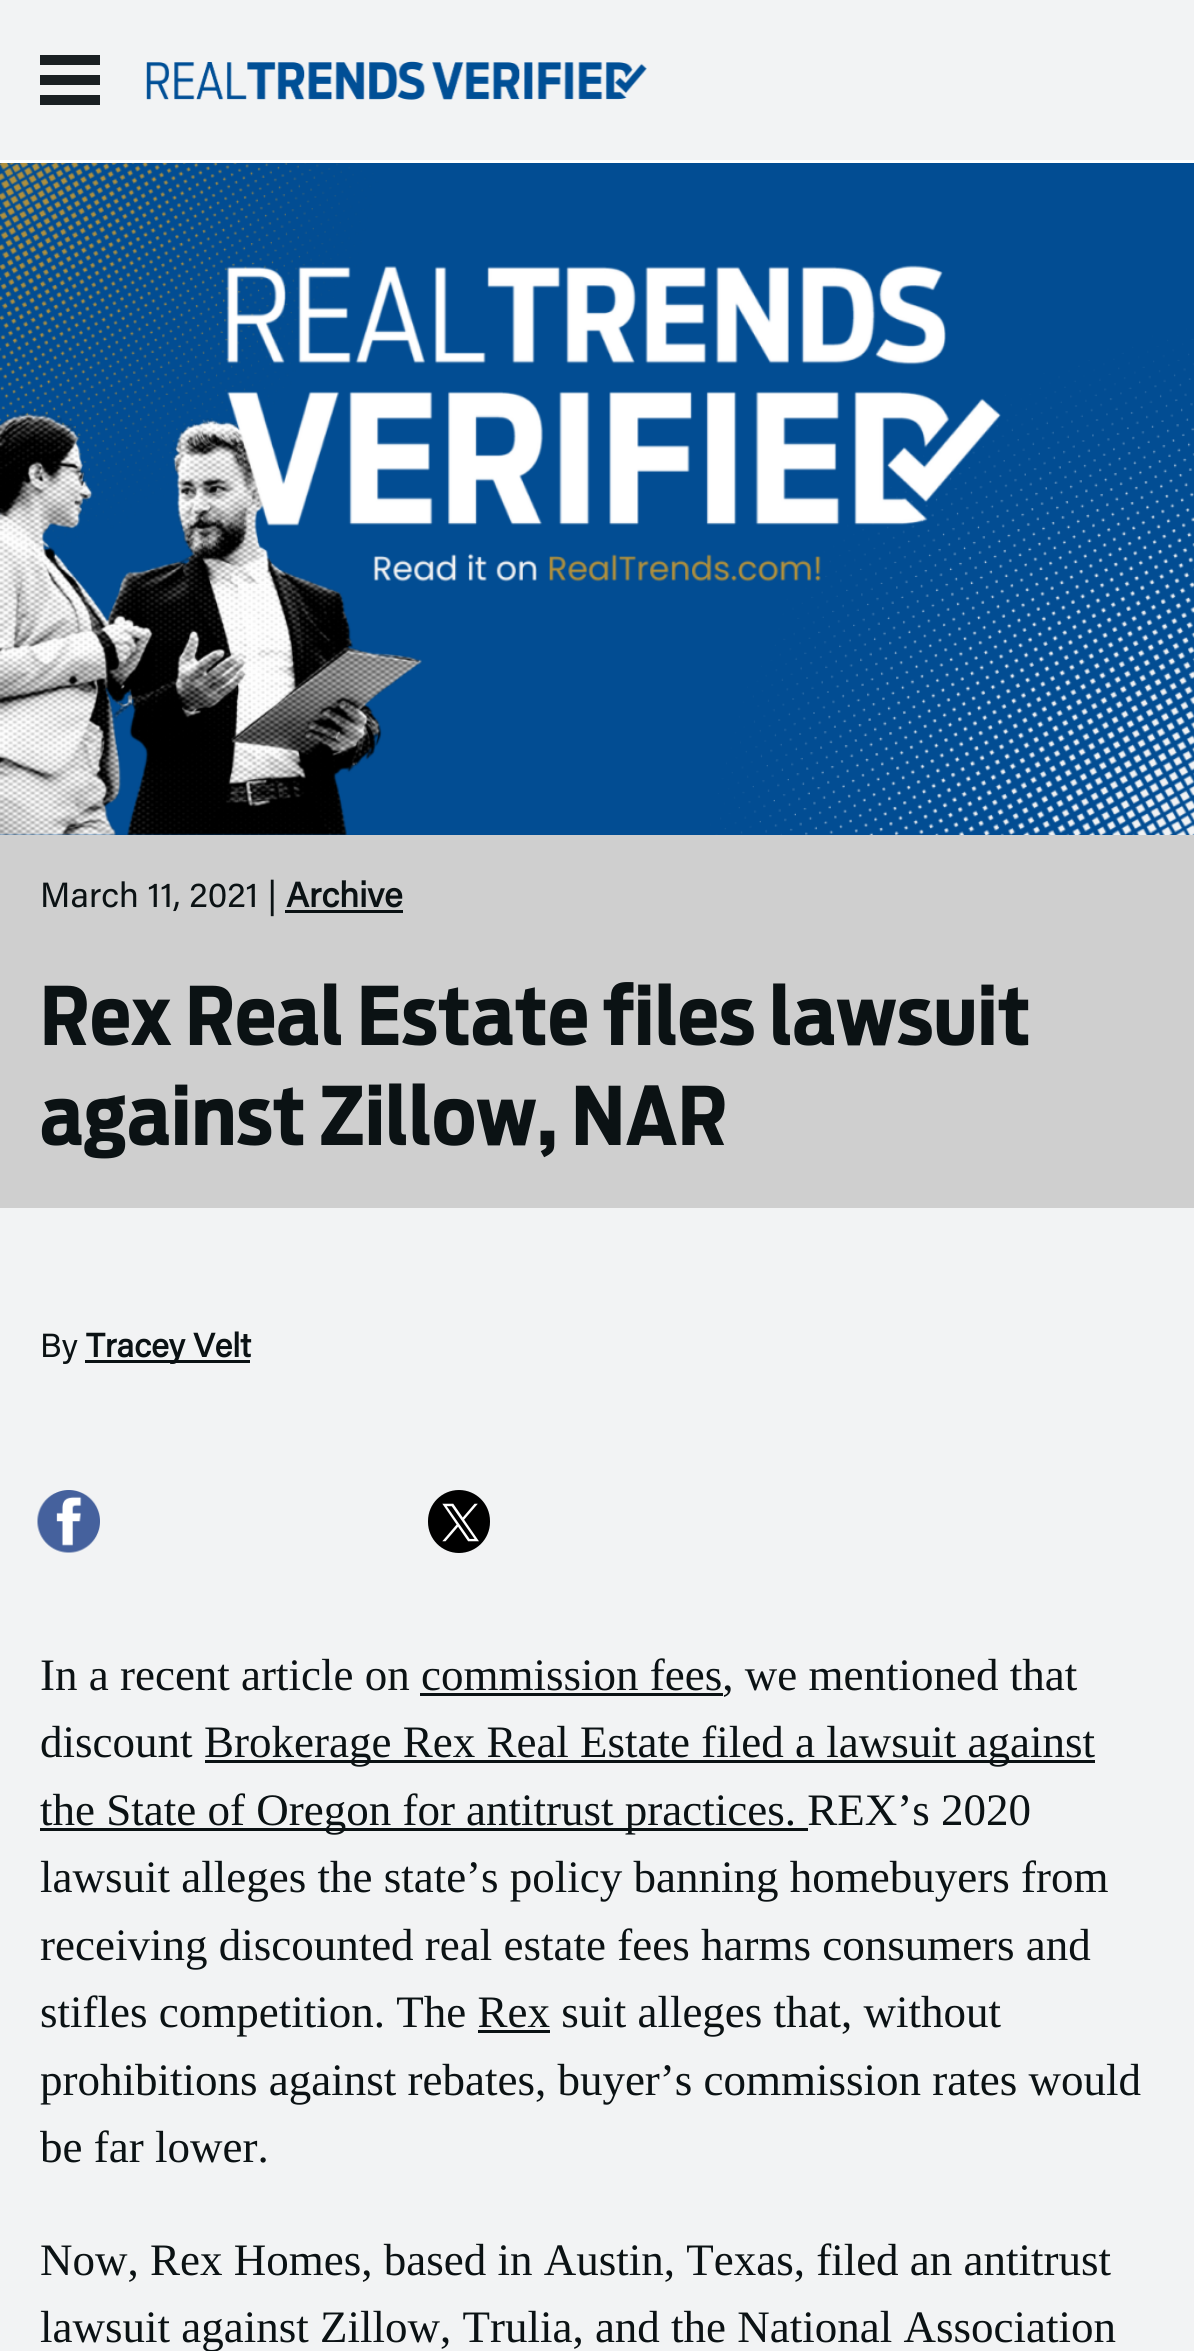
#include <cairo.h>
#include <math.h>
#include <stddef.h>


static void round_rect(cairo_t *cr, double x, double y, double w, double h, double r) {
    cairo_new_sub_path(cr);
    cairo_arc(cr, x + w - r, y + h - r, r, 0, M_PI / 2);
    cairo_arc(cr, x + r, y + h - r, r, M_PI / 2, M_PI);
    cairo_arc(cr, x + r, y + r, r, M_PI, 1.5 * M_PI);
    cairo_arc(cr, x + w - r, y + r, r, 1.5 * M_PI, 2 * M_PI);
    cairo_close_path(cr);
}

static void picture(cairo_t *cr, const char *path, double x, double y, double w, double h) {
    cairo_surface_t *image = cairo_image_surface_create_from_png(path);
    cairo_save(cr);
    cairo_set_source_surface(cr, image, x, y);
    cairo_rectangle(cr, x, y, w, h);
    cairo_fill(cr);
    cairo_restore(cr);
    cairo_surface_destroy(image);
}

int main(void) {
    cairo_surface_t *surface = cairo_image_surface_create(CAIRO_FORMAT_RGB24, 1194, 2351);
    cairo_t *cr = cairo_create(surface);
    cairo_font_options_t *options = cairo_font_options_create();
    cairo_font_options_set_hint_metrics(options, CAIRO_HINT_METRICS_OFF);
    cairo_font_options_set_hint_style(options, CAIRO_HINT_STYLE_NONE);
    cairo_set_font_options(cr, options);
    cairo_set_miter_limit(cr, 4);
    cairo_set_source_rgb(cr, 0.949, 0.953, 0.957);
    cairo_paint(cr);
    cairo_set_source_rgb(cr, 1, 1, 1);
    cairo_rectangle(cr, 0, 160, 1194, 3);
    cairo_fill(cr);
    cairo_set_source_rgb(cr, 0.102, 0.122, 0.133);
    cairo_rectangle(cr, 40, 55, 60, 10);
    cairo_fill(cr);
    cairo_rectangle(cr, 40, 75, 60, 10);
    cairo_fill(cr);
    cairo_rectangle(cr, 40, 95, 60, 10);
    cairo_fill(cr);
    picture(cr, "img1.png", 146, 61, 501, 39);
    cairo_set_source_rgb(cr, 0.812, 0.812, 0.812);
    cairo_rectangle(cr, 0, 835, 1194, 373);
    cairo_fill(cr);
    picture(cr, "img2.png", 0, 163, 1194, 672);
    cairo_select_font_face(cr, "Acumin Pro", CAIRO_FONT_SLANT_NORMAL, CAIRO_FONT_WEIGHT_NORMAL);
    cairo_set_font_size(cr, 35);
    cairo_set_source_rgb(cr, 0.043, 0.071, 0.082);
    cairo_move_to(cr, 40, 907);
    cairo_show_text(cr, "March 11, 2021 |");
    cairo_select_font_face(cr, "Acumin Pro", CAIRO_FONT_SLANT_NORMAL, CAIRO_FONT_WEIGHT_BOLD);
    cairo_move_to(cr, 286, 907);
    cairo_show_text(cr, "Archive");
    cairo_rectangle(cr, 285, 910, 118, 3);
    cairo_fill(cr);
    cairo_select_font_face(cr, "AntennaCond", CAIRO_FONT_SLANT_NORMAL, CAIRO_FONT_WEIGHT_BOLD);
    cairo_set_font_size(cr, 80);
    cairo_move_to(cr, 40, 1045);
    cairo_show_text(cr, "Rex Real Estate files lawsuit");
    cairo_move_to(cr, 40, 1145);
    cairo_show_text(cr, "against Zillow, NAR");
    cairo_select_font_face(cr, "Acumin Pro", CAIRO_FONT_SLANT_NORMAL, CAIRO_FONT_WEIGHT_NORMAL);
    cairo_set_font_size(cr, 33.5);
    cairo_move_to(cr, 40, 1357);
    cairo_show_text(cr, "By");
    cairo_rectangle(cr, 85, 1360, 165, 3);
    cairo_fill(cr);
    cairo_select_font_face(cr, "Acumin Pro", CAIRO_FONT_SLANT_NORMAL, CAIRO_FONT_WEIGHT_BOLD);
    cairo_move_to(cr, 86, 1357);
    cairo_show_text(cr, "Tracey Velt");
    picture(cr, "img3.png", 37, 1490, 63, 63);
    cairo_set_source_rgb(cr, 0, 0, 0);
    round_rect(cr, 428, 1490, 62, 63, 31);
    cairo_fill(cr);
    picture(cr, "img4.png", 442, 1503, 37, 39);
    cairo_select_font_face(cr, "Liberation Serif", CAIRO_FONT_SLANT_NORMAL, CAIRO_FONT_WEIGHT_NORMAL);
    cairo_set_font_size(cr, 45);
    cairo_set_source_rgb(cr, 0.043, 0.071, 0.082);
    cairo_move_to(cr, 40, 1690);
    cairo_show_text(cr, "In a recent article on commission fees, we mentioned that");
    cairo_rectangle(cr, 420, 1693, 303, 3);
    cairo_fill(cr);
    cairo_move_to(cr, 40, 1757);
    cairo_show_text(cr, "discount");
    cairo_rectangle(cr, 205, 1760, 890, 3);
    cairo_fill(cr);
    cairo_move_to(cr, 204, 1757);
    cairo_show_text(cr, "Brokerage Rex Real Estate filed a lawsuit against");
    cairo_rectangle(cr, 40, 1828, 768, 3);
    cairo_fill(cr);
    cairo_move_to(cr, 40, 1825);
    cairo_show_text(cr, "the State of Oregon for antitrust practices. REX’s 2020");
    cairo_move_to(cr, 40, 1892);
    cairo_show_text(cr, "lawsuit alleges the state’s policy banning homebuyers from");
    cairo_move_to(cr, 40, 1960);
    cairo_show_text(cr, "receiving discounted real estate fees harms consumers and");
    cairo_move_to(cr, 40, 2027);
    cairo_show_text(cr, "stifles competition. The Rex suit alleges that, without");
    cairo_rectangle(cr, 478, 2030, 72, 3);
    cairo_fill(cr);
    cairo_move_to(cr, 40, 2095);
    cairo_show_text(cr, "prohibitions against rebates, buyer’s commission rates would");
    cairo_move_to(cr, 40, 2162);
    cairo_show_text(cr, "be far lower.");
    cairo_move_to(cr, 40, 2275);
    cairo_show_text(cr, "Now, Rex Homes, based in Austin, Texas, filed an antitrust");
    cairo_move_to(cr, 40, 2342);
    cairo_show_text(cr, "lawsuit against Zillow, Trulia, and the National Association");
    cairo_surface_write_to_png(surface, "page.png");
    cairo_font_options_destroy(options);
    cairo_destroy(cr);
    cairo_surface_destroy(surface);
    return 0;
}
